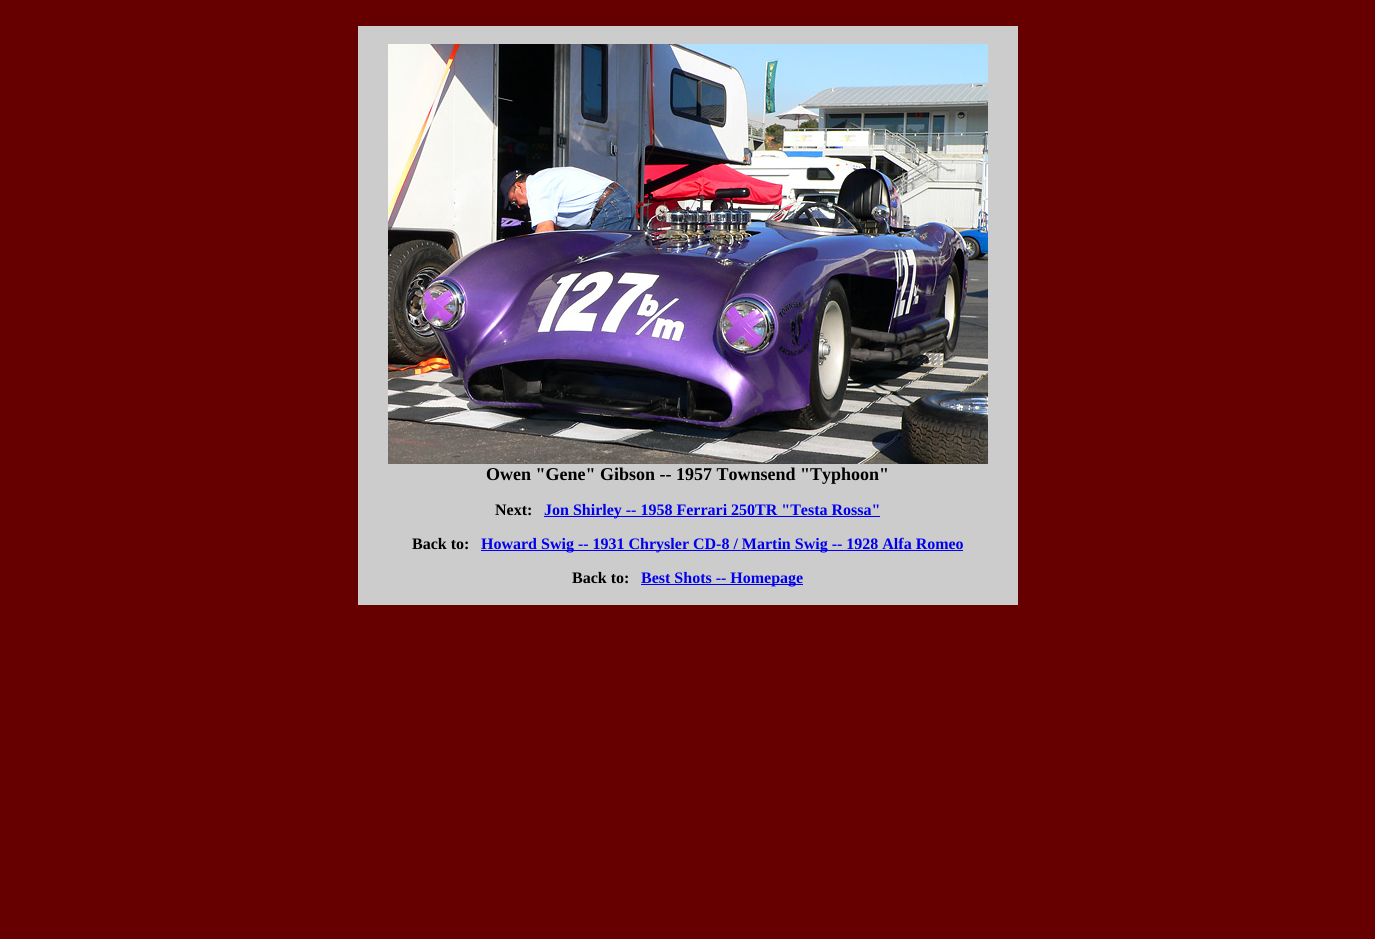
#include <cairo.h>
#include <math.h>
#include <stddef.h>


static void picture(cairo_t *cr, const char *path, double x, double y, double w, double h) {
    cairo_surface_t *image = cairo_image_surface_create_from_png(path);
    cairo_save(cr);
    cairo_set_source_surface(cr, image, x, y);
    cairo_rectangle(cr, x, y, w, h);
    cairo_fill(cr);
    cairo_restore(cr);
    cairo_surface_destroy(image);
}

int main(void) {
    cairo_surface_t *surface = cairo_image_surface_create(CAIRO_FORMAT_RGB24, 1375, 939);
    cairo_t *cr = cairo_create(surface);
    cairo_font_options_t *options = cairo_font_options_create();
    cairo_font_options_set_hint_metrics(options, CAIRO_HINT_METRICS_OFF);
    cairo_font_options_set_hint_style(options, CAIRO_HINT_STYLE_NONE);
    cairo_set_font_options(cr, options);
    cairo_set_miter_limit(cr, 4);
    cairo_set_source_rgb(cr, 0.4, 0, 0);
    cairo_paint(cr);
    cairo_set_source_rgb(cr, 0.8, 0.8, 0.8);
    cairo_rectangle(cr, 358, 26, 660, 579);
    cairo_fill(cr);
    picture(cr, "img1.png", 388, 44, 600, 420);
    cairo_select_font_face(cr, "Liberation Serif", CAIRO_FONT_SLANT_NORMAL, CAIRO_FONT_WEIGHT_BOLD);
    cairo_set_font_size(cr, 18);
    cairo_set_source_rgb(cr, 0, 0, 0);
    cairo_move_to(cr, 486, 480);
    cairo_show_text(cr, "Owen \"Gene\" Gibson -- 1957 Townsend \"Typhoon\"");
    cairo_set_font_size(cr, 16);
    cairo_move_to(cr, 495, 515);
    cairo_show_text(cr, "Next:");
    cairo_set_source_rgb(cr, 0, 0, 0.933);
    cairo_rectangle(cr, 544, 516, 336, 1);
    cairo_fill(cr);
    cairo_move_to(cr, 544, 515);
    cairo_show_text(cr, "Jon Shirley -- 1958 Ferrari 250TR \"Testa Rossa\"");
    cairo_set_source_rgb(cr, 0, 0, 0);
    cairo_move_to(cr, 412, 549);
    cairo_show_text(cr, "Back to:");
    cairo_set_source_rgb(cr, 0, 0, 0.933);
    cairo_rectangle(cr, 481, 550, 482, 1);
    cairo_fill(cr);
    cairo_move_to(cr, 481, 549);
    cairo_show_text(cr, "Howard Swig -- 1931 Chrysler CD-8 / Martin Swig -- 1928 Alfa Romeo");
    cairo_set_source_rgb(cr, 0, 0, 0);
    cairo_move_to(cr, 572, 583);
    cairo_show_text(cr, "Back to:");
    cairo_set_source_rgb(cr, 0, 0, 0.933);
    cairo_rectangle(cr, 641, 584, 162, 1);
    cairo_fill(cr);
    cairo_move_to(cr, 641, 583);
    cairo_show_text(cr, "Best Shots -- Homepage");
    cairo_surface_write_to_png(surface, "page.png");
    cairo_font_options_destroy(options);
    cairo_destroy(cr);
    cairo_surface_destroy(surface);
    return 0;
}
